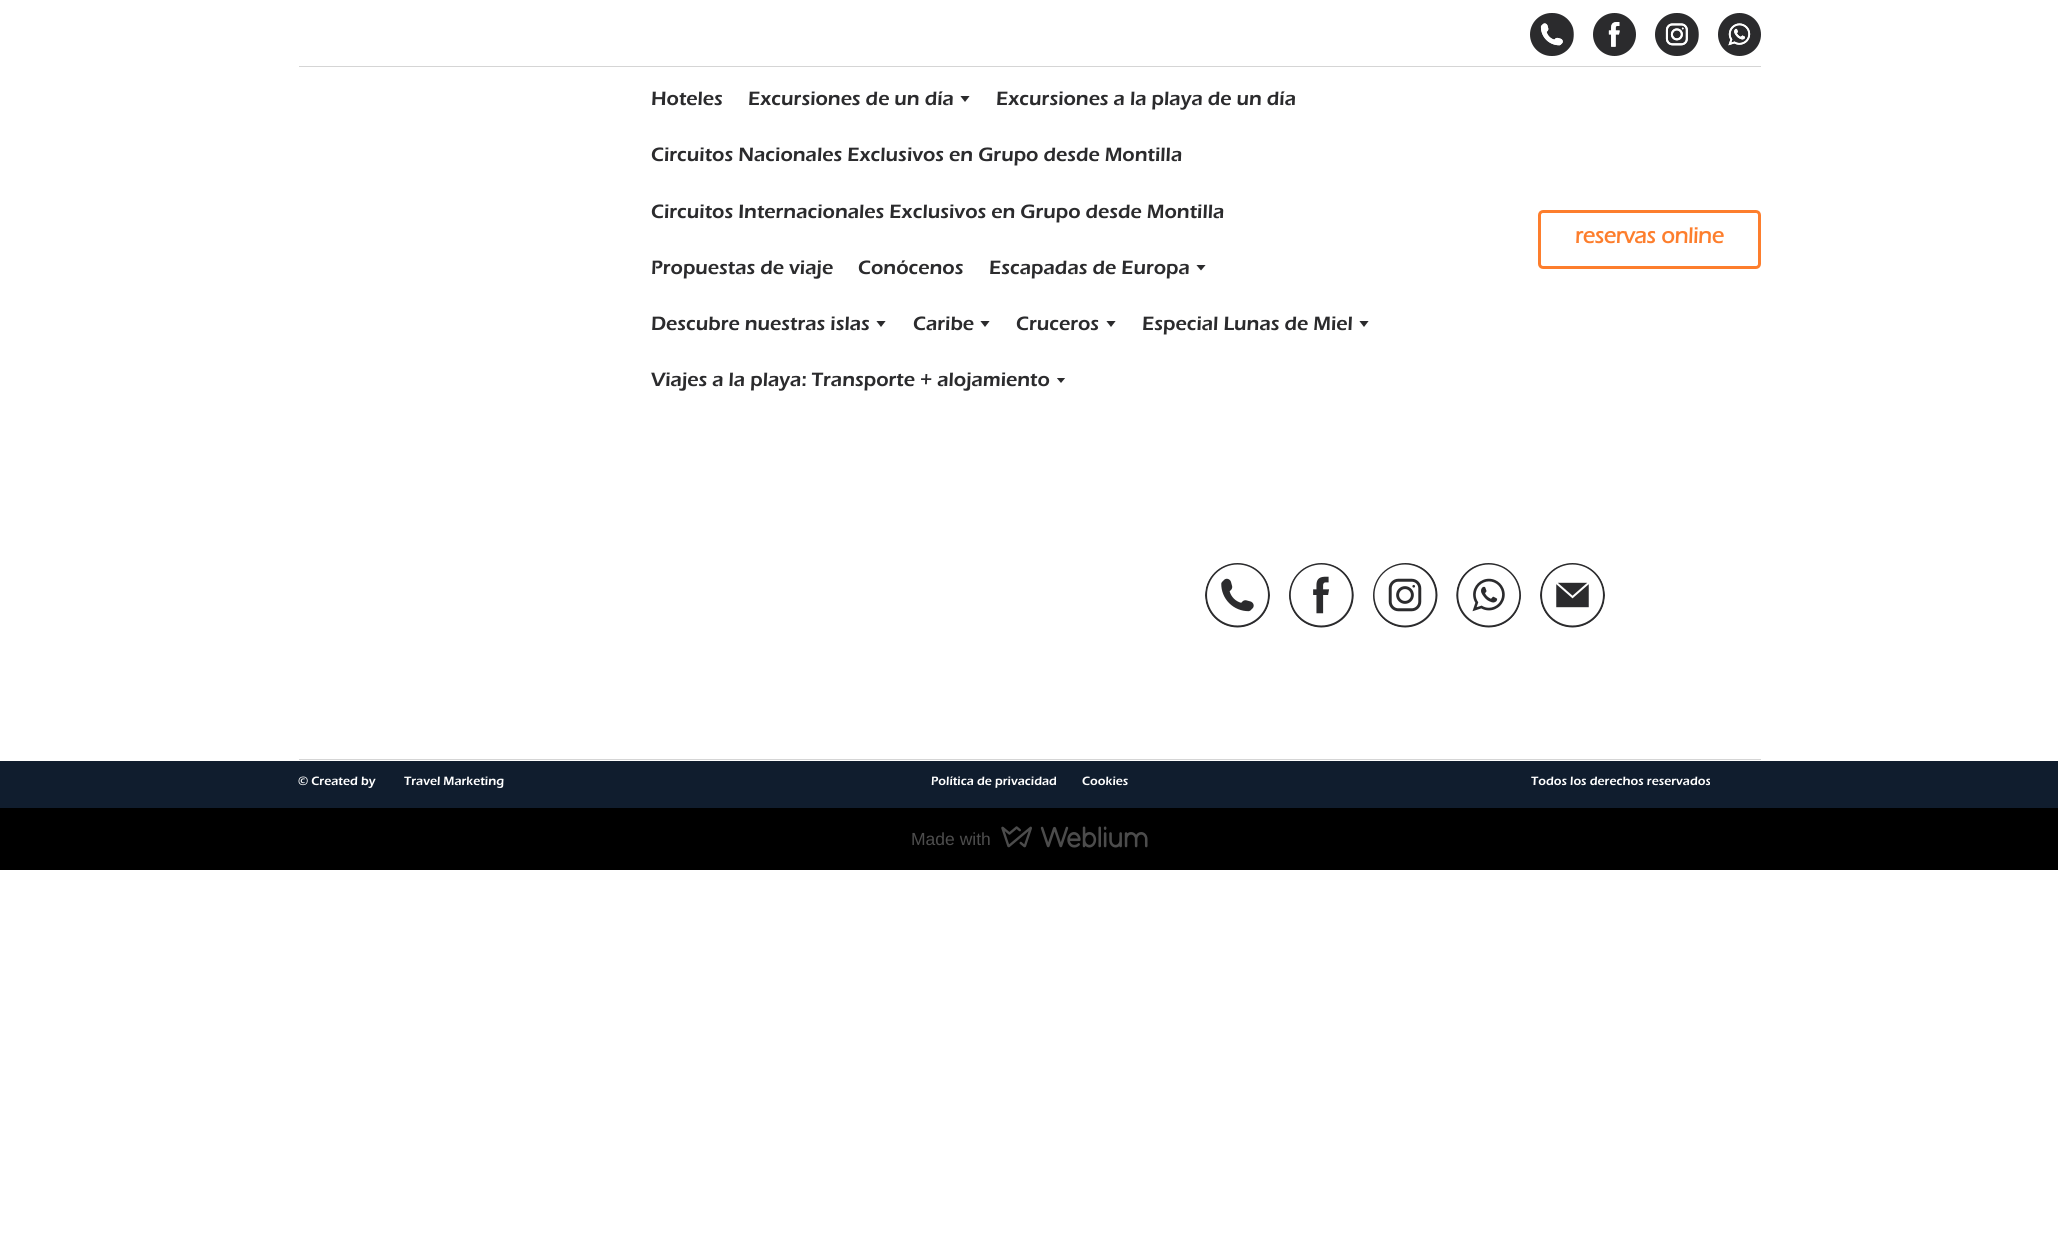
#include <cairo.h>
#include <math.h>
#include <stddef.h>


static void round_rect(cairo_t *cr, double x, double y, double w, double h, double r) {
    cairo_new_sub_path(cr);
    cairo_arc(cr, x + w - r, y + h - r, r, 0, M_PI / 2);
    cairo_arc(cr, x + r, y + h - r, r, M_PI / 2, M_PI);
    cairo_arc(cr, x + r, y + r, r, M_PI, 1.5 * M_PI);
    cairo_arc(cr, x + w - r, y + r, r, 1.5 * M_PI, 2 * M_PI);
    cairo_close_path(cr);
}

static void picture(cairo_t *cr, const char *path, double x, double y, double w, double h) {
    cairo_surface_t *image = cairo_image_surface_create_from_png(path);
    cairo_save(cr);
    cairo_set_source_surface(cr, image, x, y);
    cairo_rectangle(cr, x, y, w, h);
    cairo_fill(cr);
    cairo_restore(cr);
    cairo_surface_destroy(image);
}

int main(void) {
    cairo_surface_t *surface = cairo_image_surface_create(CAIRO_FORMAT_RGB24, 2058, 1251);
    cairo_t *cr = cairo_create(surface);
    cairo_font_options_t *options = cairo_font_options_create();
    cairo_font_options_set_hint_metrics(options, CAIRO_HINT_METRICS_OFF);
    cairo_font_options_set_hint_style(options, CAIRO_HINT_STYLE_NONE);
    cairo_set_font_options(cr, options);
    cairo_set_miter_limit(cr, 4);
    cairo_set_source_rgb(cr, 1, 1, 1);
    cairo_paint(cr);
    picture(cr, "img1.png", 1530, 13, 44, 43);
    picture(cr, "img2.png", 1593, 13, 43, 43);
    picture(cr, "img3.png", 1655, 13, 44, 43);
    picture(cr, "img4.png", 1718, 13, 43, 43);
    cairo_set_source_rgb(cr, 0.835, 0.835, 0.835);
    cairo_rectangle(cr, 299, 66, 1462, 1);
    cairo_fill(cr);
    cairo_select_font_face(cr, "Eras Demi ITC", CAIRO_FONT_SLANT_NORMAL, CAIRO_FONT_WEIGHT_NORMAL);
    cairo_set_font_size(cr, 20);
    cairo_set_source_rgb(cr, 0.169, 0.169, 0.176);
    cairo_move_to(cr, 651, 105);
    cairo_show_text(cr, "Hoteles");
    cairo_move_to(cr, 748, 105);
    cairo_show_text(cr, "Excursiones de un día");
    cairo_save(cr);
    cairo_rectangle(cr, 959, 96, 12, 7);
    cairo_clip(cr);
    cairo_new_path(cr);
    cairo_move_to(cr, 965, 102);
    cairo_line_to(cr, 970, 95.5);
    cairo_line_to(cr, 960, 95.5);
    cairo_close_path(cr);
    cairo_fill(cr);
    cairo_restore(cr);
    cairo_move_to(cr, 996, 105);
    cairo_show_text(cr, "Excursiones a la playa de un día");
    cairo_move_to(cr, 651, 161);
    cairo_show_text(cr, "Circuitos Nacionales Exclusivos en Grupo desde Montilla");
    cairo_move_to(cr, 651, 218);
    cairo_show_text(cr, "Circuitos Internacionales Exclusivos en Grupo desde Montilla");
    cairo_move_to(cr, 651, 274);
    cairo_show_text(cr, "Propuestas de viaje");
    cairo_move_to(cr, 858, 274);
    cairo_show_text(cr, "Conócenos");
    cairo_move_to(cr, 989, 274);
    cairo_show_text(cr, "Escapadas de Europa");
    cairo_save(cr);
    cairo_rectangle(cr, 1195, 265, 13, 6);
    cairo_clip(cr);
    cairo_new_path(cr);
    cairo_move_to(cr, 1201, 270.5);
    cairo_line_to(cr, 1206, 264.5);
    cairo_line_to(cr, 1196, 264.5);
    cairo_close_path(cr);
    cairo_fill(cr);
    cairo_restore(cr);
    cairo_move_to(cr, 651, 330);
    cairo_show_text(cr, "Descubre nuestras islas");
    cairo_save(cr);
    cairo_rectangle(cr, 875, 321, 13, 7);
    cairo_clip(cr);
    cairo_new_path(cr);
    cairo_move_to(cr, 881, 327);
    cairo_line_to(cr, 886, 320.5);
    cairo_line_to(cr, 876, 320.5);
    cairo_close_path(cr);
    cairo_fill(cr);
    cairo_restore(cr);
    cairo_move_to(cr, 913, 330);
    cairo_show_text(cr, "Caribe");
    cairo_save(cr);
    cairo_rectangle(cr, 979, 321, 12, 7);
    cairo_clip(cr);
    cairo_new_path(cr);
    cairo_move_to(cr, 985, 327);
    cairo_line_to(cr, 990, 320.5);
    cairo_line_to(cr, 980, 320.5);
    cairo_close_path(cr);
    cairo_fill(cr);
    cairo_restore(cr);
    cairo_move_to(cr, 1016, 330);
    cairo_show_text(cr, "Cruceros");
    cairo_save(cr);
    cairo_rectangle(cr, 1105, 321, 13, 7);
    cairo_clip(cr);
    cairo_new_path(cr);
    cairo_move_to(cr, 1111, 327);
    cairo_line_to(cr, 1116, 320.5);
    cairo_line_to(cr, 1106, 320.5);
    cairo_close_path(cr);
    cairo_fill(cr);
    cairo_restore(cr);
    cairo_move_to(cr, 1142, 330);
    cairo_show_text(cr, "Especial Lunas de Miel");
    cairo_save(cr);
    cairo_rectangle(cr, 1358, 321, 12, 7);
    cairo_clip(cr);
    cairo_new_path(cr);
    cairo_move_to(cr, 1364, 327);
    cairo_line_to(cr, 1369, 320.5);
    cairo_line_to(cr, 1359, 320.5);
    cairo_close_path(cr);
    cairo_fill(cr);
    cairo_restore(cr);
    cairo_move_to(cr, 651, 386);
    cairo_show_text(cr, "Viajes a la playa: Transporte + alojamiento");
    cairo_save(cr);
    cairo_rectangle(cr, 1055, 378, 13, 6);
    cairo_clip(cr);
    cairo_new_path(cr);
    cairo_move_to(cr, 1061, 383);
    cairo_line_to(cr, 1066, 377);
    cairo_line_to(cr, 1056, 377);
    cairo_close_path(cr);
    cairo_fill(cr);
    cairo_restore(cr);
    round_rect(cr, 1539.5, 211.5, 220, 56, 3.5);
    cairo_set_source_rgb(cr, 0.992, 0.494, 0.176);
    cairo_set_line_width(cr, 3);
    cairo_stroke(cr);
    cairo_select_font_face(cr, "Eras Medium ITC", CAIRO_FONT_SLANT_NORMAL, CAIRO_FONT_WEIGHT_BOLD);
    cairo_set_font_size(cr, 22.5);
    cairo_move_to(cr, 1575, 243);
    cairo_show_text(cr, "reservas online");
    picture(cr, "img5.png", 1205, 563, 65, 65);
    picture(cr, "img6.png", 1289, 563, 65, 65);
    picture(cr, "img7.png", 1373, 563, 65, 65);
    picture(cr, "img8.png", 1456, 563, 65, 65);
    picture(cr, "img9.png", 1540, 563, 65, 65);
    cairo_set_source_rgb(cr, 0.835, 0.835, 0.835);
    cairo_rectangle(cr, 299, 759, 1462, 1);
    cairo_fill(cr);
    cairo_set_source_rgb(cr, 0.063, 0.114, 0.18);
    cairo_rectangle(cr, 0, 761, 2058, 47);
    cairo_fill(cr);
    cairo_select_font_face(cr, "Eras Demi ITC", CAIRO_FONT_SLANT_NORMAL, CAIRO_FONT_WEIGHT_NORMAL);
    cairo_set_font_size(cr, 12.5);
    cairo_set_source_rgb(cr, 1, 1, 1);
    cairo_move_to(cr, 298, 785);
    cairo_show_text(cr, "© Created by");
    cairo_move_to(cr, 404, 785);
    cairo_show_text(cr, "Travel Marketing");
    cairo_save(cr);
    cairo_rectangle(cr, 931, 774, 125, 15);
    cairo_clip(cr);
    cairo_move_to(cr, 931, 785);
    cairo_show_text(cr, "Política de privacidad");
    cairo_restore(cr);
    cairo_move_to(cr, 1082, 785);
    cairo_show_text(cr, "Cookies");
    cairo_move_to(cr, 1531, 785);
    cairo_show_text(cr, "Todos los derechos reservados");
    cairo_set_source_rgb(cr, 0, 0, 0);
    cairo_rectangle(cr, 0, 808, 2058, 62);
    cairo_fill(cr);
    cairo_select_font_face(cr, "Liberation Sans", CAIRO_FONT_SLANT_NORMAL, CAIRO_FONT_WEIGHT_NORMAL);
    cairo_set_font_size(cr, 17.5);
    cairo_set_source_rgb(cr, 0.302, 0.302, 0.302);
    cairo_move_to(cr, 911, 845);
    cairo_show_text(cr, "Made with");
    picture(cr, "img10.png", 1001, 826, 147, 22);
    cairo_surface_write_to_png(surface, "page.png");
    cairo_font_options_destroy(options);
    cairo_destroy(cr);
    cairo_surface_destroy(surface);
    return 0;
}
